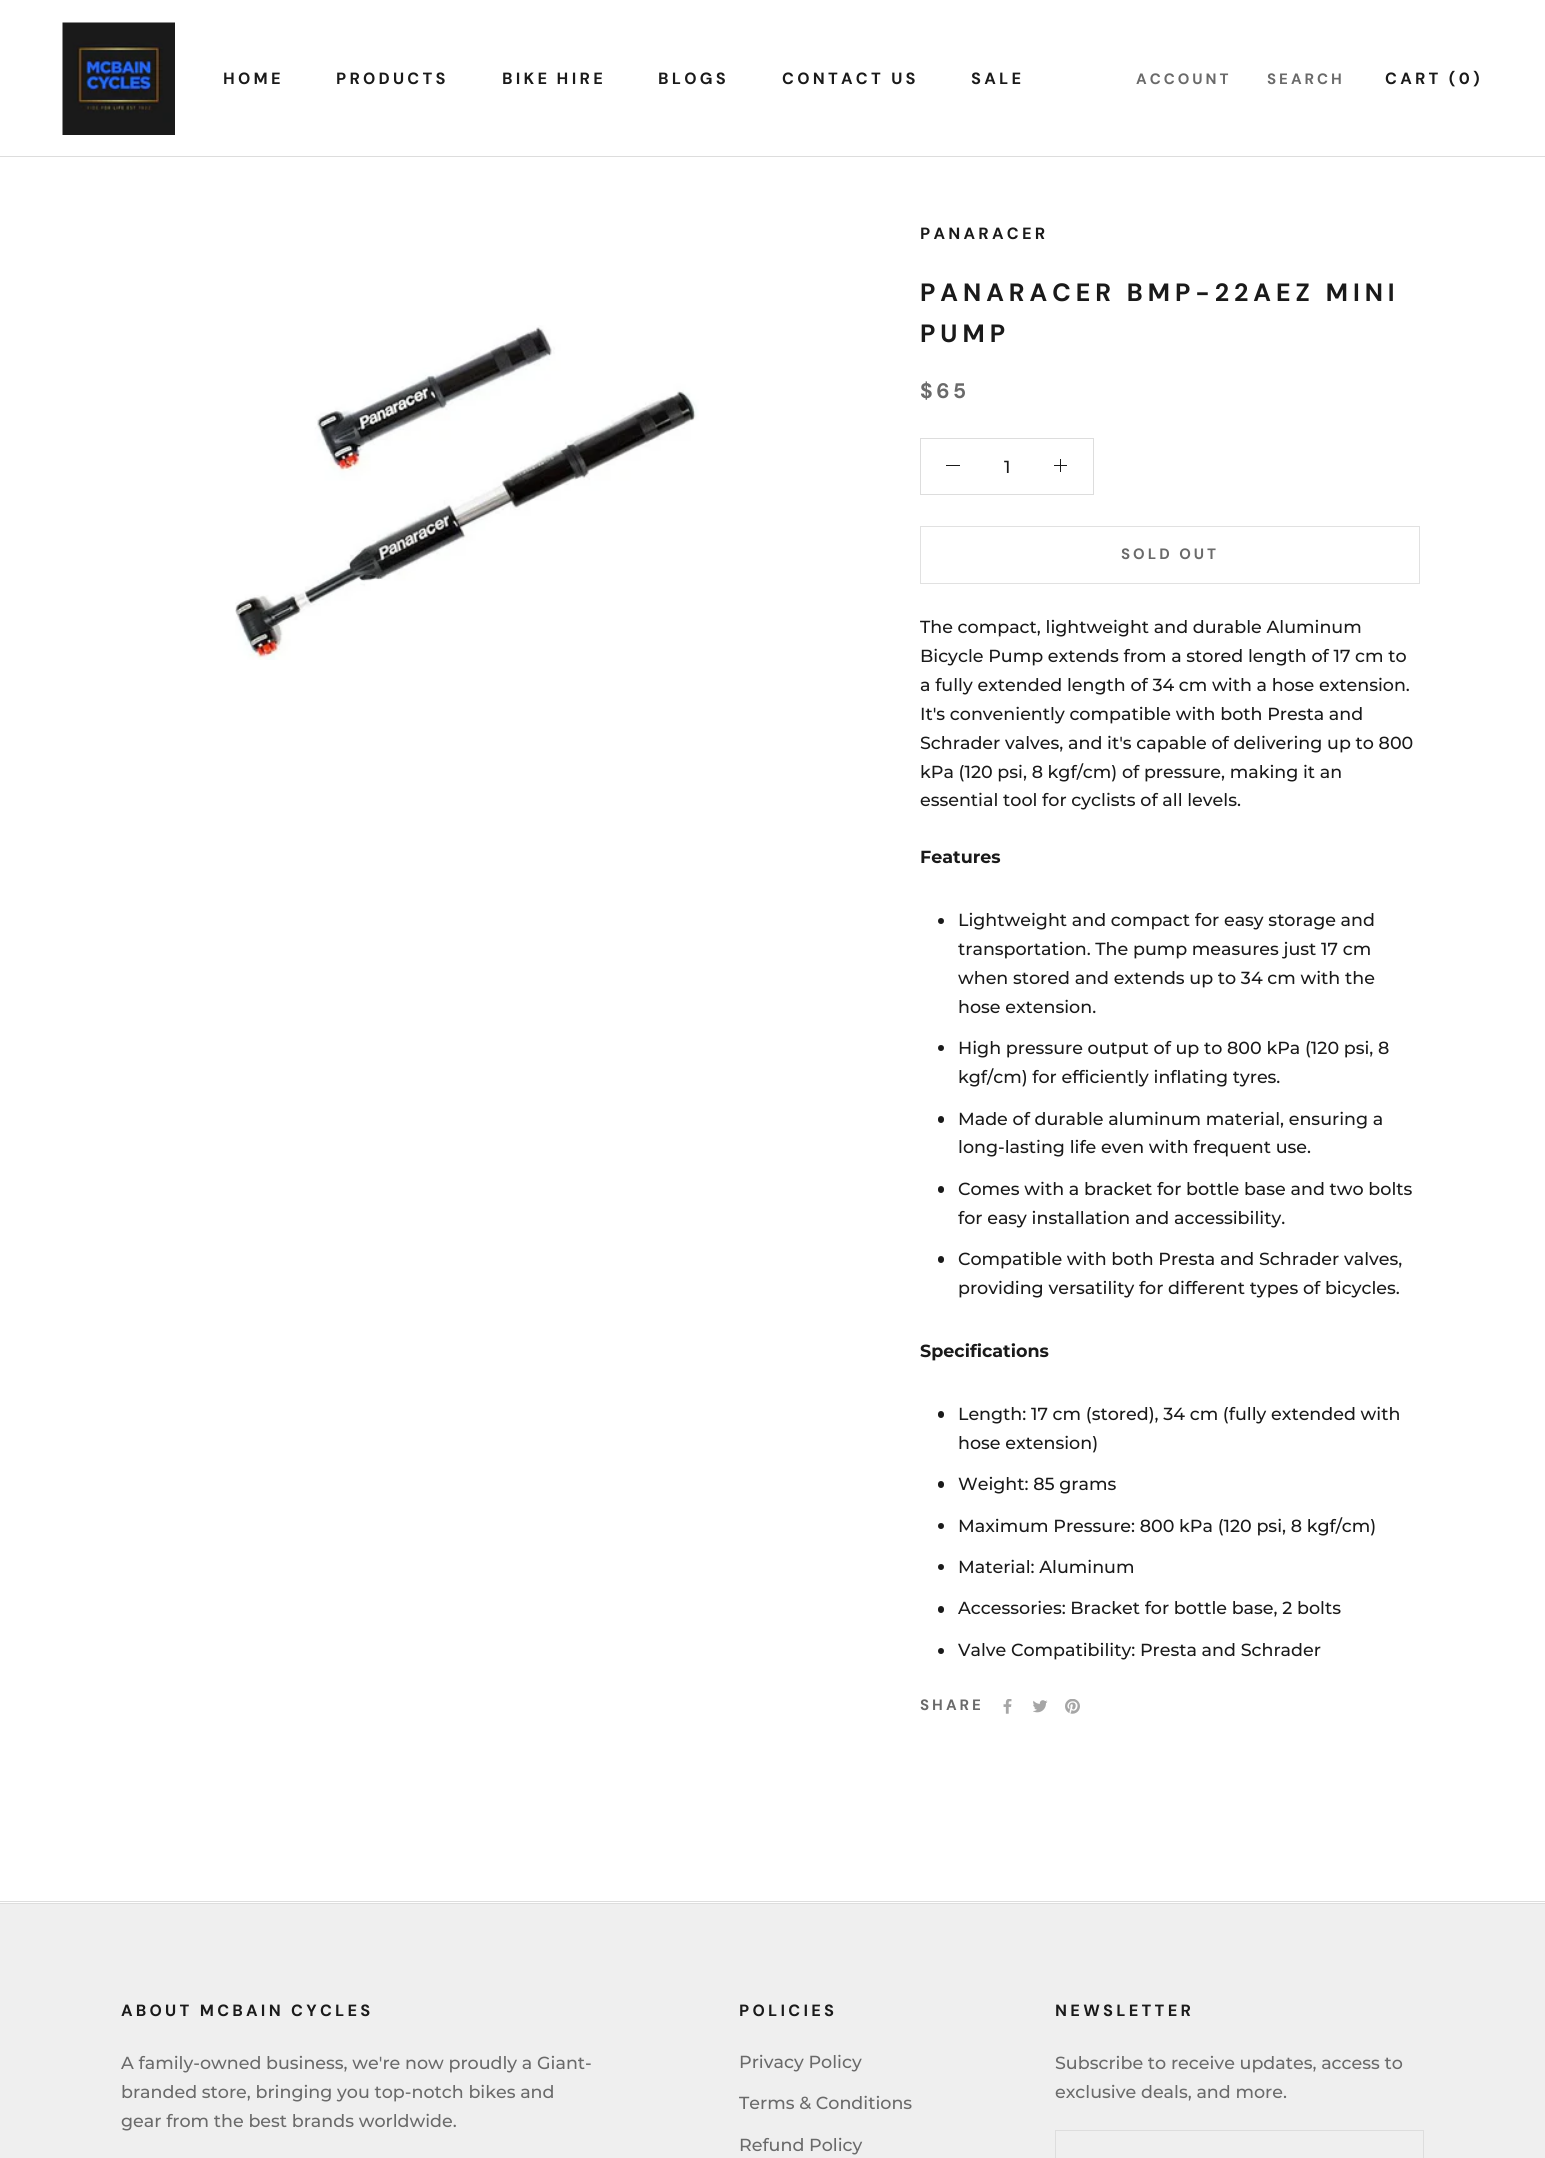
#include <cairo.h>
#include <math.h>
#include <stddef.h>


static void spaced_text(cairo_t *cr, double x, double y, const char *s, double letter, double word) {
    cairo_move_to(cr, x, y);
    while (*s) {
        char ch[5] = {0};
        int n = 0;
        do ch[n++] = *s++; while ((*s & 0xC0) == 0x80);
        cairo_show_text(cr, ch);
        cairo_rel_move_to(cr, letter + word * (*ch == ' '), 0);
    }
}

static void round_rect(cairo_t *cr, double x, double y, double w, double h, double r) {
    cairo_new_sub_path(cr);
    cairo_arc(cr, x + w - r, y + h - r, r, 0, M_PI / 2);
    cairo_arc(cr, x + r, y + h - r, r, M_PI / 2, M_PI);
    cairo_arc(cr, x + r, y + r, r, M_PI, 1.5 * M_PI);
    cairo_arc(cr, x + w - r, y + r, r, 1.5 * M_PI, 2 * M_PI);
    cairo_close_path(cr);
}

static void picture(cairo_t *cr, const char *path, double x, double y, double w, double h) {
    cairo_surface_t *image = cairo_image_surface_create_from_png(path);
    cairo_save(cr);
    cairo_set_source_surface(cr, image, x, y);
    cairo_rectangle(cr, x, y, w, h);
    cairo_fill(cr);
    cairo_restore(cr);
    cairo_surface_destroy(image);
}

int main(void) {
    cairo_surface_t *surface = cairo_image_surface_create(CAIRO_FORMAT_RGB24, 1545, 2158);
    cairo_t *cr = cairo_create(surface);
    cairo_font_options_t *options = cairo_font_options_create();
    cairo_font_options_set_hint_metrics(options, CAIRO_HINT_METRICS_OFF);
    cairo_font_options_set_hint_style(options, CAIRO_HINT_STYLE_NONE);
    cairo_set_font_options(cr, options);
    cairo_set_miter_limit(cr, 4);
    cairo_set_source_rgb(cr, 1, 1, 1);
    cairo_paint(cr);
    cairo_set_source_rgb(cr, 0.867, 0.867, 0.867);
    cairo_rectangle(cr, 0, 156, 1545, 1);
    cairo_fill(cr);
    picture(cr, "img1.png", 62, 22, 113, 113);
    cairo_select_font_face(cr, "DM Sans", CAIRO_FONT_SLANT_NORMAL, CAIRO_FONT_WEIGHT_BOLD);
    cairo_set_font_size(cr, 16.25);
    cairo_set_source_rgb(cr, 0.102, 0.102, 0.102);
    spaced_text(cr, 223, 84, "HOME", 3.25, 0);
    spaced_text(cr, 336, 84, "PRODUCTS", 3.25, 0);
    spaced_text(cr, 502, 84, "BIKE HIRE", 3.25, -1);
    spaced_text(cr, 658, 84, "BLOGS", 3.25, 0);
    spaced_text(cr, 782, 84, "CONTACT US", 3.25, 0);
    spaced_text(cr, 971, 84, "SALE", 3.25, 0);
    cairo_select_font_face(cr, "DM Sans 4", CAIRO_FONT_SLANT_NORMAL, CAIRO_FONT_WEIGHT_BOLD);
    cairo_set_font_size(cr, 15);
    cairo_set_source_rgb(cr, 0.416, 0.416, 0.416);
    spaced_text(cr, 1136, 84, "ACCOUNT", 3, 0);
    spaced_text(cr, 1267, 84, "SEARCH", 3, 0);
    cairo_select_font_face(cr, "DM Sans", CAIRO_FONT_SLANT_NORMAL, CAIRO_FONT_WEIGHT_BOLD);
    cairo_set_font_size(cr, 16.25);
    cairo_set_source_rgb(cr, 0.102, 0.102, 0.102);
    spaced_text(cr, 1385, 84, "CART (0)", 3.25, 0);
    picture(cr, "img2.png", 235, 325, 464, 335);
    spaced_text(cr, 920, 239, "PANARACER", 3.25, 0);
    cairo_select_font_face(cr, "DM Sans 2", CAIRO_FONT_SLANT_NORMAL, CAIRO_FONT_WEIGHT_BOLD);
    cairo_set_font_size(cr, 25);
    spaced_text(cr, 920, 301, "PANARACER BMP-22AEZ MINI", 5, 0);
    spaced_text(cr, 920, 342, "PUMP", 5, 0);
    cairo_select_font_face(cr, "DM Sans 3", CAIRO_FONT_SLANT_NORMAL, CAIRO_FONT_WEIGHT_BOLD);
    cairo_set_font_size(cr, 21);
    cairo_set_source_rgb(cr, 0.416, 0.416, 0.416);
    spaced_text(cr, 920, 398, "$65", 3.5, 0);
    cairo_rectangle(cr, 920.5, 438.5, 173, 56);
    cairo_set_source_rgb(cr, 0.867, 0.867, 0.867);
    cairo_set_line_width(cr, 1);
    cairo_stroke(cr);
    cairo_set_source_rgb(cr, 0.102, 0.102, 0.102);
    cairo_rectangle(cr, 946, 465, 14, 1);
    cairo_fill(cr);
    cairo_select_font_face(cr, "Montserrat Medium", CAIRO_FONT_SLANT_NORMAL, CAIRO_FONT_WEIGHT_NORMAL);
    cairo_set_font_size(cr, 17.5);
    cairo_move_to(cr, 1004, 473);
    cairo_show_text(cr, "1");
    cairo_rectangle(cr, 1060, 459, 1, 13);
    cairo_fill(cr);
    cairo_rectangle(cr, 1054, 465, 13, 1);
    cairo_fill(cr);
    cairo_rectangle(cr, 920.5, 526.5, 499, 57);
    cairo_set_source_rgb(cr, 0.882, 0.882, 0.882);
    cairo_stroke(cr);
    cairo_select_font_face(cr, "DM Sans 4", CAIRO_FONT_SLANT_NORMAL, CAIRO_FONT_WEIGHT_BOLD);
    cairo_set_font_size(cr, 15);
    cairo_set_source_rgb(cr, 0.416, 0.416, 0.416);
    spaced_text(cr, 1121, 559, "SOLD OUT", 3, 0);
    cairo_select_font_face(cr, "Montserrat Medium", CAIRO_FONT_SLANT_NORMAL, CAIRO_FONT_WEIGHT_NORMAL);
    cairo_set_font_size(cr, 17.5);
    cairo_set_source_rgb(cr, 0.102, 0.102, 0.102);
    cairo_move_to(cr, 920, 633);
    cairo_show_text(cr, "The compact, lightweight and durable Aluminum");
    cairo_move_to(cr, 920, 662);
    cairo_show_text(cr, "Bicycle Pump extends from a stored length of 17 cm to");
    cairo_move_to(cr, 920, 691);
    cairo_show_text(cr, "a fully extended length of 34 cm with a hose extension.");
    cairo_move_to(cr, 920, 720);
    cairo_show_text(cr, "It's conveniently compatible with both Presta and");
    cairo_move_to(cr, 920, 749);
    cairo_show_text(cr, "Schrader valves, and it's capable of delivering up to 800");
    cairo_move_to(cr, 920, 778);
    cairo_show_text(cr, "kPa (120 psi, 8 kgf/cm) of pressure, making it an");
    cairo_move_to(cr, 920, 806);
    cairo_show_text(cr, "essential tool for cyclists of all levels.");
    cairo_select_font_face(cr, "Montserrat", CAIRO_FONT_SLANT_NORMAL, CAIRO_FONT_WEIGHT_BOLD);
    cairo_move_to(cr, 920, 863);
    cairo_show_text(cr, "Features");
    cairo_new_path(cr);
    cairo_arc(cr, 941, 921, 3, 0, 2 * M_PI);
    cairo_fill(cr);
    cairo_select_font_face(cr, "Montserrat Medium", CAIRO_FONT_SLANT_NORMAL, CAIRO_FONT_WEIGHT_NORMAL);
    cairo_move_to(cr, 958, 926);
    cairo_show_text(cr, "Lightweight and compact for easy storage and");
    cairo_move_to(cr, 958, 955);
    cairo_show_text(cr, "transportation. The pump measures just 17 cm");
    cairo_move_to(cr, 958, 984);
    cairo_show_text(cr, "when stored and extends up to 34 cm with the");
    cairo_move_to(cr, 958, 1013);
    cairo_show_text(cr, "hose extension.");
    cairo_new_path(cr);
    cairo_arc(cr, 941, 1048, 3, 0, 2 * M_PI);
    cairo_fill(cr);
    cairo_move_to(cr, 958, 1054);
    cairo_show_text(cr, "High pressure output of up to 800 kPa (120 psi, 8");
    cairo_move_to(cr, 958, 1083);
    cairo_show_text(cr, "kgf/cm) for efficiently inflating tyres.");
    round_rect(cr, 938, 1116, 6, 7, 3);
    cairo_fill(cr);
    cairo_move_to(cr, 958, 1125);
    cairo_show_text(cr, "Made of durable aluminum material, ensuring a");
    cairo_move_to(cr, 958, 1153);
    cairo_show_text(cr, "long-lasting life even with frequent use.");
    round_rect(cr, 938, 1186, 6, 7, 3);
    cairo_fill(cr);
    cairo_move_to(cr, 958, 1195);
    cairo_show_text(cr, "Comes with a bracket for bottle base and two bolts");
    cairo_move_to(cr, 958, 1224);
    cairo_show_text(cr, "for easy installation and accessibility.");
    round_rect(cr, 938, 1256, 6, 7, 3);
    cairo_fill(cr);
    cairo_move_to(cr, 958, 1265);
    cairo_show_text(cr, "Compatible with both Presta and Schrader valves,");
    cairo_move_to(cr, 958, 1294);
    cairo_show_text(cr, "providing versatility for different types of bicycles.");
    cairo_select_font_face(cr, "Montserrat", CAIRO_FONT_SLANT_NORMAL, CAIRO_FONT_WEIGHT_BOLD);
    cairo_move_to(cr, 920, 1357);
    cairo_show_text(cr, "Specifications");
    round_rect(cr, 938, 1411, 6, 7, 3);
    cairo_fill(cr);
    cairo_select_font_face(cr, "Montserrat Medium", CAIRO_FONT_SLANT_NORMAL, CAIRO_FONT_WEIGHT_NORMAL);
    cairo_move_to(cr, 958, 1420);
    cairo_show_text(cr, "Length: 17 cm (stored), 34 cm (fully extended with");
    cairo_move_to(cr, 958, 1449);
    cairo_show_text(cr, "hose extension)");
    round_rect(cr, 938, 1481, 6, 7, 3);
    cairo_fill(cr);
    cairo_move_to(cr, 958, 1490);
    cairo_show_text(cr, "Weight: 85 grams");
    cairo_new_path(cr);
    cairo_arc(cr, 941, 1526, 3, 0, 2 * M_PI);
    cairo_fill(cr);
    cairo_move_to(cr, 958, 1532);
    cairo_show_text(cr, "Maximum Pressure: 800 kPa (120 psi, 8 kgf/cm)");
    cairo_new_path(cr);
    cairo_arc(cr, 941, 1567, 3, 0, 2 * M_PI);
    cairo_fill(cr);
    cairo_move_to(cr, 958, 1573);
    cairo_show_text(cr, "Material: Aluminum");
    round_rect(cr, 938, 1606, 6, 7, 3);
    cairo_fill(cr);
    cairo_move_to(cr, 958, 1614);
    cairo_show_text(cr, "Accessories: Bracket for bottle base, 2 bolts");
    cairo_new_path(cr);
    cairo_arc(cr, 941, 1651, 3, 0, 2 * M_PI);
    cairo_fill(cr);
    cairo_move_to(cr, 958, 1656);
    cairo_show_text(cr, "Valve Compatibility: Presta and Schrader");
    cairo_select_font_face(cr, "DM Sans 4", CAIRO_FONT_SLANT_NORMAL, CAIRO_FONT_WEIGHT_BOLD);
    cairo_set_font_size(cr, 15);
    cairo_set_source_rgb(cr, 0.416, 0.416, 0.416);
    spaced_text(cr, 920, 1710, "SHARE", 3, 0);
    picture(cr, "img3.png", 1003, 1699, 9, 15);
    picture(cr, "img4.png", 1033, 1700, 15, 13);
    picture(cr, "img5.png", 1065, 1699, 15, 15);
    cairo_set_source_rgb(cr, 0.867, 0.867, 0.867);
    cairo_rectangle(cr, 0, 1901, 1545, 1);
    cairo_fill(cr);
    cairo_set_source_rgb(cr, 0.937, 0.937, 0.937);
    cairo_rectangle(cr, 0, 1904, 1545, 254);
    cairo_fill(cr);
    cairo_set_source_rgb(cr, 0.867, 0.867, 0.867);
    cairo_rectangle(cr, 0, 1903, 1545, 1);
    cairo_fill(cr);
    cairo_select_font_face(cr, "DM Sans", CAIRO_FONT_SLANT_NORMAL, CAIRO_FONT_WEIGHT_BOLD);
    cairo_set_font_size(cr, 16.25);
    cairo_set_source_rgb(cr, 0.102, 0.102, 0.102);
    spaced_text(cr, 121, 2016, "ABOUT MCBAIN CYCLES", 3.25, 0);
    cairo_select_font_face(cr, "Montserrat Medium", CAIRO_FONT_SLANT_NORMAL, CAIRO_FONT_WEIGHT_NORMAL);
    cairo_set_font_size(cr, 17.5);
    cairo_set_source_rgb(cr, 0.416, 0.416, 0.416);
    cairo_move_to(cr, 121, 2069);
    cairo_show_text(cr, "A family-owned business, we're now proudly a Giant-");
    cairo_move_to(cr, 121, 2098);
    cairo_show_text(cr, "branded store, bringing you top-notch bikes and");
    cairo_move_to(cr, 121, 2127);
    cairo_show_text(cr, "gear from the best brands worldwide.");
    cairo_select_font_face(cr, "DM Sans", CAIRO_FONT_SLANT_NORMAL, CAIRO_FONT_WEIGHT_BOLD);
    cairo_set_font_size(cr, 16.25);
    cairo_set_source_rgb(cr, 0.102, 0.102, 0.102);
    spaced_text(cr, 739, 2016, "POLICIES", 3.25, 0);
    cairo_select_font_face(cr, "Montserrat Medium", CAIRO_FONT_SLANT_NORMAL, CAIRO_FONT_WEIGHT_NORMAL);
    cairo_set_font_size(cr, 17.5);
    cairo_set_source_rgb(cr, 0.416, 0.416, 0.416);
    cairo_move_to(cr, 739, 2068);
    cairo_show_text(cr, "Privacy Policy");
    cairo_move_to(cr, 739, 2109);
    cairo_show_text(cr, "Terms & Conditions");
    cairo_move_to(cr, 739, 2151);
    cairo_show_text(cr, "Refund Policy");
    cairo_select_font_face(cr, "DM Sans", CAIRO_FONT_SLANT_NORMAL, CAIRO_FONT_WEIGHT_BOLD);
    cairo_set_font_size(cr, 16.25);
    cairo_set_source_rgb(cr, 0.102, 0.102, 0.102);
    spaced_text(cr, 1055, 2016, "NEWSLETTER", 3.25, 0);
    cairo_select_font_face(cr, "Montserrat Medium", CAIRO_FONT_SLANT_NORMAL, CAIRO_FONT_WEIGHT_NORMAL);
    cairo_set_font_size(cr, 17.5);
    cairo_set_source_rgb(cr, 0.416, 0.416, 0.416);
    cairo_move_to(cr, 1055, 2069);
    cairo_show_text(cr, "Subscribe to receive updates, access to");
    cairo_move_to(cr, 1055, 2098);
    cairo_show_text(cr, "exclusive deals, and more.");
    cairo_rectangle(cr, 1055.5, 2130.5, 368, 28);
    cairo_set_source_rgb(cr, 0.867, 0.867, 0.867);
    cairo_stroke(cr);
    cairo_surface_write_to_png(surface, "page.png");
    cairo_font_options_destroy(options);
    cairo_destroy(cr);
    cairo_surface_destroy(surface);
    return 0;
}
